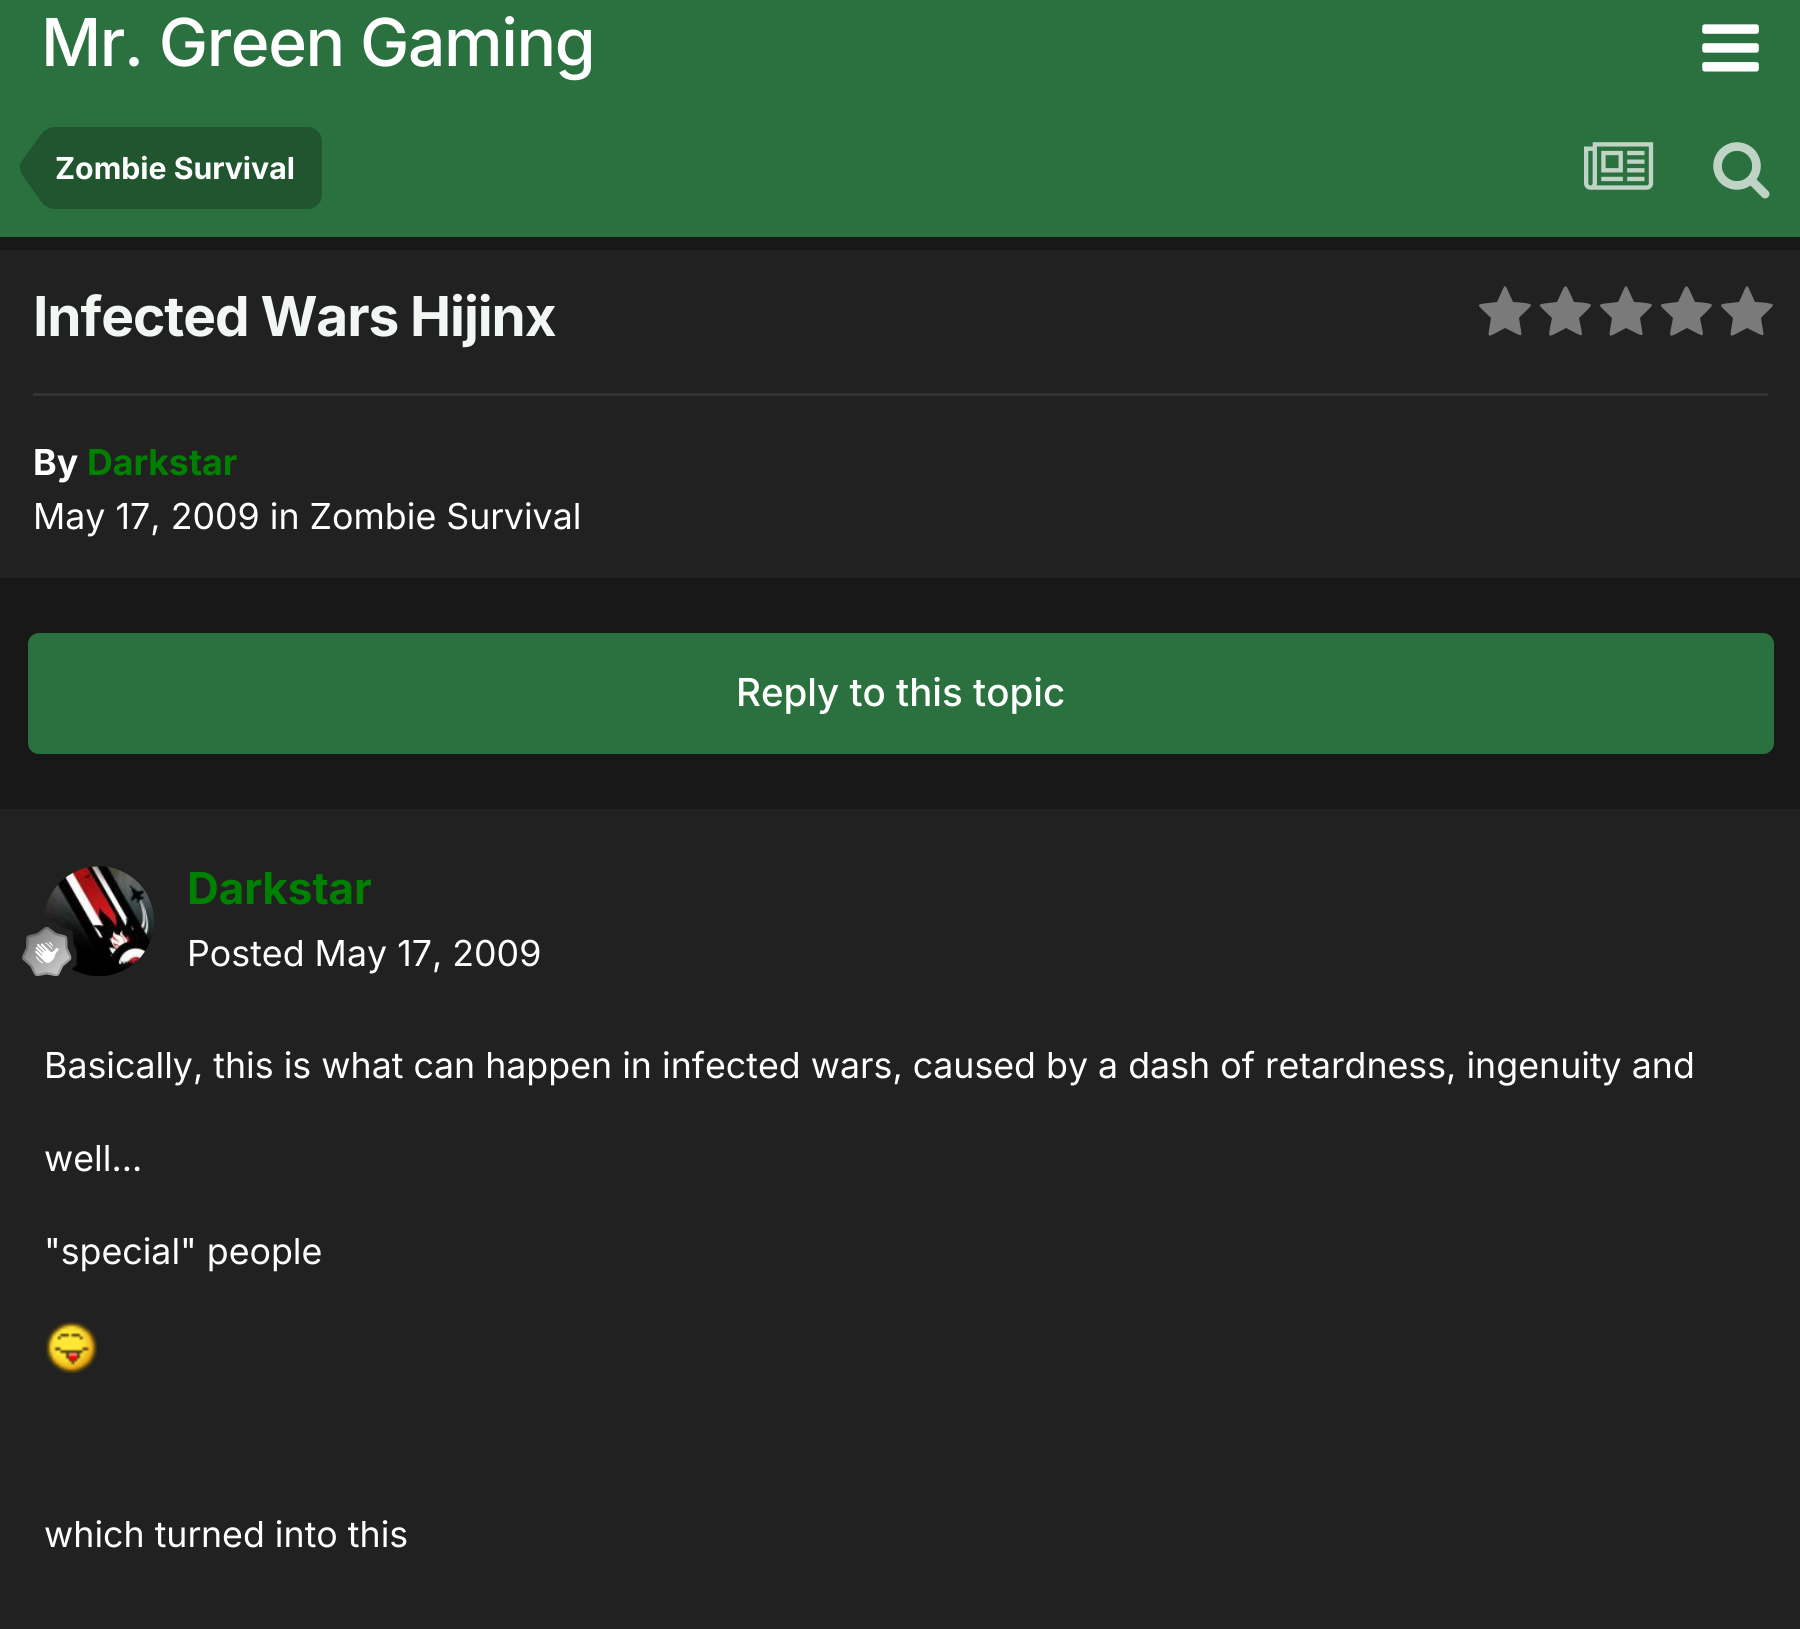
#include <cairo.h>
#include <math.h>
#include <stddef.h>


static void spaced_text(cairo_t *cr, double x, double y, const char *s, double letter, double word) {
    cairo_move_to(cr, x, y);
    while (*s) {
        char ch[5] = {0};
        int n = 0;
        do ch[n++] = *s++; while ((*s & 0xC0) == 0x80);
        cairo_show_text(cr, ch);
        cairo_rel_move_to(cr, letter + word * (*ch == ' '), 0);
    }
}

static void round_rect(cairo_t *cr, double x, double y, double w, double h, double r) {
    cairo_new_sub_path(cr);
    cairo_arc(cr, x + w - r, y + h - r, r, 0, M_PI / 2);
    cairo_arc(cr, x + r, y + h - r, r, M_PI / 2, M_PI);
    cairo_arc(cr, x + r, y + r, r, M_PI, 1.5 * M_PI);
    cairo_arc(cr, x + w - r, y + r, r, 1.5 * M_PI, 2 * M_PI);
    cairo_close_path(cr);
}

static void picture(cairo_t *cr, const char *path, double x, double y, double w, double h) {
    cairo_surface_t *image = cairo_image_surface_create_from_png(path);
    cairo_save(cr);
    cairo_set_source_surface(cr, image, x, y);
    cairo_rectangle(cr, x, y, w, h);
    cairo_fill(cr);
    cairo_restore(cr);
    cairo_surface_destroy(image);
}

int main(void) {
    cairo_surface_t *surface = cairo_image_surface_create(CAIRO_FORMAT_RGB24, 1800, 1629);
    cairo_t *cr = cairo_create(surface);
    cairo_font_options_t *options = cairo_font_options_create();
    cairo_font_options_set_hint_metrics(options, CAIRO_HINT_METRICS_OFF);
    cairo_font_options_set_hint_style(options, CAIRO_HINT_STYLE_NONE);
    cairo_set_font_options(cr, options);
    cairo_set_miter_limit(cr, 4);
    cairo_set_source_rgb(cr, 0.094, 0.094, 0.094);
    cairo_paint(cr);
    cairo_set_source_rgb(cr, 0.169, 0.443, 0.247);
    cairo_rectangle(cr, 0, 0, 1800, 237);
    cairo_fill(cr);
    cairo_select_font_face(cr, "Inter Medium", CAIRO_FONT_SLANT_NORMAL, CAIRO_FONT_WEIGHT_NORMAL);
    cairo_set_font_size(cr, 66);
    cairo_set_source_rgb(cr, 1, 1, 1);
    spaced_text(cr, 41, 66, "Mr. Green Gaming", -1.4, 0);
    picture(cr, "img1.png", 1702, 24, 57, 48);
    cairo_set_source_rgb(cr, 0.125, 0.333, 0.184);
    cairo_new_path(cr);
    cairo_move_to(cr, 55, 127);
    cairo_line_to(cr, 308, 127);
    cairo_curve_to(cr, 315.5, 127, 322, 133.5, 322, 141);
    cairo_line_to(cr, 322, 195);
    cairo_curve_to(cr, 322, 202.5, 315.5, 209, 308, 209);
    cairo_line_to(cr, 55, 209);
    cairo_close_path(cr);
    cairo_fill(cr);
    cairo_new_path(cr);
    cairo_move_to(cr, 21, 173);
    cairo_line_to(cr, 20, 168);
    cairo_line_to(cr, 55, 168);
    cairo_line_to(cr, 55, 209);
    cairo_curve_to(cr, 49, 209, 44, 206, 39, 199);
    cairo_close_path(cr);
    cairo_fill(cr);
    cairo_new_path(cr);
    cairo_move_to(cr, 55, 127);
    cairo_line_to(cr, 55, 168);
    cairo_line_to(cr, 20, 168);
    cairo_curve_to(cr, 19, 166, 20, 164, 21, 162);
    cairo_line_to(cr, 39, 137);
    cairo_curve_to(cr, 44, 130, 49, 127, 55, 127);
    cairo_close_path(cr);
    cairo_fill(cr);
    cairo_select_font_face(cr, "Inter", CAIRO_FONT_SLANT_NORMAL, CAIRO_FONT_WEIGHT_BOLD);
    cairo_set_font_size(cr, 30.25);
    cairo_set_source_rgb(cr, 1, 1, 1);
    cairo_move_to(cr, 55, 179);
    cairo_show_text(cr, "Zombie Survival");
    picture(cr, "img2.png", 1584, 142, 70, 48);
    picture(cr, "img3.png", 1713, 142, 57, 57);
    cairo_set_source_rgb(cr, 0.129, 0.129, 0.129);
    cairo_rectangle(cr, 0, 250, 1800, 328);
    cairo_fill(cr);
    cairo_set_font_size(cr, 55);
    cairo_set_source_rgb(cr, 0.953, 0.965, 0.957);
    spaced_text(cr, 33, 336, "Infected Wars Hijinx", -1.1, 0);
    cairo_set_source_rgb(cr, 0.478, 0.478, 0.478);
    cairo_new_path(cr);
    cairo_move_to(cr, 1531, 305);
    cairo_curve_to(cr, 1531, 307, 1520, 316, 1519, 318);
    cairo_curve_to(cr, 1522, 340, 1526, 338, 1505, 328);
    cairo_curve_to(cr, 1484, 339, 1488, 340, 1491, 318);
    cairo_curve_to(cr, 1475, 302, 1473, 305, 1497, 302);
    cairo_curve_to(cr, 1507, 281, 1503, 281, 1513, 302);
    cairo_curve_to(cr, 1516, 302, 1531, 303, 1531, 305);
    cairo_close_path(cr);
    cairo_fill(cr);
    cairo_new_path(cr);
    cairo_move_to(cr, 1591, 305);
    cairo_curve_to(cr, 1591, 307, 1581, 316, 1579, 318);
    cairo_curve_to(cr, 1583, 340, 1586, 338, 1566, 328);
    cairo_curve_to(cr, 1545, 339, 1548, 340, 1552, 318);
    cairo_curve_to(cr, 1536, 302, 1534, 305, 1557, 302);
    cairo_curve_to(cr, 1567, 281, 1564, 281, 1574, 302);
    cairo_curve_to(cr, 1577, 302, 1591, 303, 1591, 305);
    cairo_close_path(cr);
    cairo_fill(cr);
    cairo_new_path(cr);
    cairo_move_to(cr, 1652, 305);
    cairo_curve_to(cr, 1652, 307, 1641, 316, 1640, 318);
    cairo_curve_to(cr, 1643, 340, 1647, 338, 1626, 328);
    cairo_curve_to(cr, 1605, 339, 1609, 340, 1612, 318);
    cairo_curve_to(cr, 1596, 302, 1594, 305, 1618, 302);
    cairo_curve_to(cr, 1628, 281, 1624, 281, 1634, 302);
    cairo_curve_to(cr, 1637, 302, 1652, 303, 1652, 305);
    cairo_close_path(cr);
    cairo_fill(cr);
    cairo_new_path(cr);
    cairo_move_to(cr, 1712, 305);
    cairo_curve_to(cr, 1712, 307, 1702, 316, 1700, 318);
    cairo_curve_to(cr, 1704, 340, 1707, 338, 1687, 328);
    cairo_curve_to(cr, 1666, 339, 1669, 340, 1673, 318);
    cairo_curve_to(cr, 1657, 302, 1655, 305, 1678, 302);
    cairo_curve_to(cr, 1688, 281, 1685, 281, 1695, 302);
    cairo_curve_to(cr, 1698, 302, 1712, 303, 1712, 305);
    cairo_close_path(cr);
    cairo_fill(cr);
    cairo_new_path(cr);
    cairo_move_to(cr, 1773, 305);
    cairo_curve_to(cr, 1773, 307, 1762, 316, 1761, 318);
    cairo_curve_to(cr, 1764, 340, 1768, 338, 1747, 328);
    cairo_curve_to(cr, 1726, 339, 1730, 340, 1733, 318);
    cairo_curve_to(cr, 1717, 302, 1715, 305, 1739, 302);
    cairo_curve_to(cr, 1749, 281, 1745, 281, 1755, 302);
    cairo_curve_to(cr, 1758, 302, 1773, 303, 1773, 305);
    cairo_close_path(cr);
    cairo_fill(cr);
    cairo_set_source_rgb(cr, 0.2, 0.2, 0.2);
    cairo_rectangle(cr, 33, 393, 1735, 3);
    cairo_fill(cr);
    cairo_set_font_size(cr, 35.75);
    cairo_set_source_rgb(cr, 1, 1, 1);
    cairo_move_to(cr, 33, 475);
    cairo_show_text(cr, "By");
    cairo_set_source_rgb(cr, 0, 0.502, 0);
    cairo_move_to(cr, 87, 475);
    cairo_show_text(cr, "Darkstar");
    cairo_select_font_face(cr, "Inter", CAIRO_FONT_SLANT_NORMAL, CAIRO_FONT_WEIGHT_NORMAL);
    cairo_set_source_rgb(cr, 1, 1, 1);
    cairo_move_to(cr, 33, 529);
    cairo_show_text(cr, "May 17, 2009 in Zombie Survival");
    cairo_set_source_rgb(cr, 0.169, 0.443, 0.247);
    round_rect(cr, 28, 633, 1746, 121, 11);
    cairo_fill(cr);
    cairo_select_font_face(cr, "Inter Medium", CAIRO_FONT_SLANT_NORMAL, CAIRO_FONT_WEIGHT_NORMAL);
    cairo_set_font_size(cr, 38.5);
    cairo_set_source_rgb(cr, 1, 1, 1);
    cairo_move_to(cr, 736, 706);
    cairo_show_text(cr, "Reply to this topic");
    cairo_set_source_rgb(cr, 0.129, 0.129, 0.129);
    cairo_rectangle(cr, 0, 809, 1800, 820);
    cairo_fill(cr);
    picture(cr, "img4.png", 44, 866, 110, 110);
    picture(cr, "img5.png", 22, 921, 56, 55);
    cairo_save(cr);
    cairo_rectangle(cr, 187, 864, 184, 49);
    cairo_clip(cr);
    cairo_select_font_face(cr, "Inter", CAIRO_FONT_SLANT_NORMAL, CAIRO_FONT_WEIGHT_BOLD);
    cairo_set_font_size(cr, 44);
    cairo_set_source_rgb(cr, 0, 0.502, 0);
    cairo_move_to(cr, 187, 904);
    cairo_show_text(cr, "Darkstar");
    cairo_restore(cr);
    cairo_select_font_face(cr, "Inter", CAIRO_FONT_SLANT_NORMAL, CAIRO_FONT_WEIGHT_NORMAL);
    cairo_set_font_size(cr, 35.75);
    cairo_set_source_rgb(cr, 1, 1, 1);
    cairo_move_to(cr, 187, 966);
    cairo_show_text(cr, "Posted May 17, 2009");
    cairo_move_to(cr, 44, 1078);
    cairo_show_text(cr, "Basically, this is what can happen in infected wars, caused by a dash of retardness, ingenuity and");
    cairo_move_to(cr, 44, 1171);
    cairo_show_text(cr, "well...");
    cairo_move_to(cr, 44, 1264);
    cairo_show_text(cr, "\"special\" people");
    picture(cr, "img6.png", 46, 1322, 52, 52);
    cairo_move_to(cr, 44, 1547);
    cairo_show_text(cr, "which turned into this");
    cairo_surface_write_to_png(surface, "page.png");
    cairo_font_options_destroy(options);
    cairo_destroy(cr);
    cairo_surface_destroy(surface);
    return 0;
}
